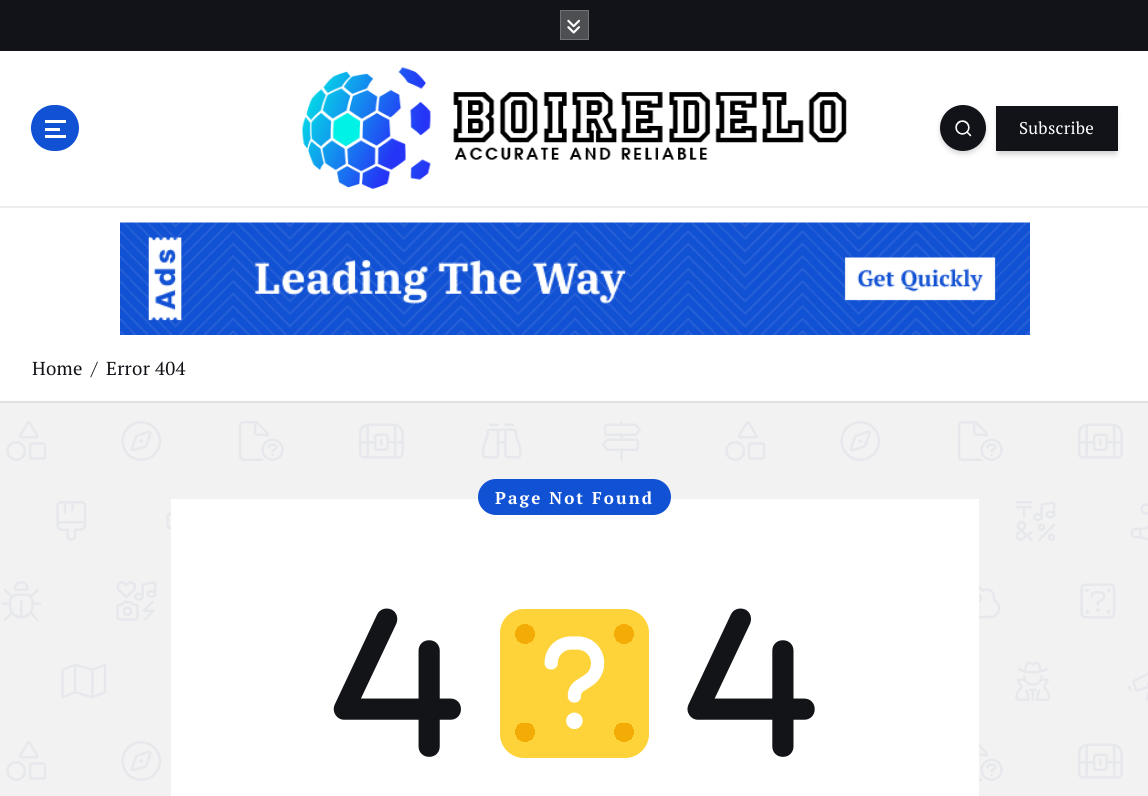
#include <cairo.h>
#include <math.h>
#include <stddef.h>


static void spaced_text(cairo_t *cr, double x, double y, const char *s, double letter, double word) {
    cairo_move_to(cr, x, y);
    while (*s) {
        char ch[5] = {0};
        int n = 0;
        do ch[n++] = *s++; while ((*s & 0xC0) == 0x80);
        cairo_show_text(cr, ch);
        cairo_rel_move_to(cr, letter + word * (*ch == ' '), 0);
    }
}

static void round_rect(cairo_t *cr, double x, double y, double w, double h, double r) {
    cairo_new_sub_path(cr);
    cairo_arc(cr, x + w - r, y + h - r, r, 0, M_PI / 2);
    cairo_arc(cr, x + r, y + h - r, r, M_PI / 2, M_PI);
    cairo_arc(cr, x + r, y + r, r, M_PI, 1.5 * M_PI);
    cairo_arc(cr, x + w - r, y + r, r, 1.5 * M_PI, 2 * M_PI);
    cairo_close_path(cr);
}

static void shadow(cairo_t *cr, double x, double y, double w, double h, double r, double blur, double alpha) {
    cairo_push_group_with_content(cr, CAIRO_CONTENT_ALPHA);
    cairo_set_operator(cr, CAIRO_OPERATOR_SOURCE);
    for (int i = 15; i >= -15 && fmin(w, h) + blur * i / 3 > 0; i -= 2) {
        double e = blur * i / 6;
        cairo_set_source_rgba(cr, 0, 0, 0, alpha * erfc((i - 1) / 8.5) / 2);
        round_rect(cr, x - e, y - e, w + 2 * e, h + 2 * e, fmax(0, fmin(r + e + blur * .6, fmin(w, h) / 2 + e)));
        cairo_fill(cr);
    }
    cairo_pattern_t *soft = cairo_pop_group(cr);
    cairo_mask(cr, soft);
    cairo_pattern_destroy(soft);
}

static void picture(cairo_t *cr, const char *path, double x, double y, double w, double h) {
    cairo_surface_t *image = cairo_image_surface_create_from_png(path);
    cairo_save(cr);
    cairo_set_source_surface(cr, image, x, y);
    cairo_rectangle(cr, x, y, w, h);
    cairo_fill(cr);
    cairo_restore(cr);
    cairo_surface_destroy(image);
}

int main(void) {
    cairo_surface_t *surface = cairo_image_surface_create(CAIRO_FORMAT_RGB24, 1148, 796);
    cairo_t *cr = cairo_create(surface);
    cairo_font_options_t *options = cairo_font_options_create();
    cairo_font_options_set_hint_metrics(options, CAIRO_HINT_METRICS_OFF);
    cairo_font_options_set_hint_style(options, CAIRO_HINT_STYLE_NONE);
    cairo_set_font_options(cr, options);
    cairo_set_miter_limit(cr, 4);
    cairo_pattern_t *gradient;
    cairo_set_source_rgb(cr, 0.949, 0.949, 0.949);
    cairo_paint(cr);
    cairo_set_source_rgb(cr, 0.071, 0.078, 0.094);
    cairo_rectangle(cr, 0, 0, 1148, 51);
    cairo_fill(cr);
    cairo_set_source_rgb(cr, 0.302, 0.31, 0.322);
    cairo_rectangle(cr, 560.5, 10.5, 28, 29);
    cairo_fill_preserve(cr);
    cairo_set_source_rgb(cr, 0.443, 0.447, 0.459);
    cairo_set_line_width(cr, 1);
    cairo_stroke(cr);
    picture(cr, "img1.png", 567, 19, 13, 15);
    cairo_set_source_rgb(cr, 1, 1, 1);
    cairo_rectangle(cr, 0, 51, 1148, 350);
    cairo_fill(cr);
    cairo_set_source_rgb(cr, 0.929, 0.929, 0.929);
    cairo_new_path(cr);
    cairo_move_to(cr, 0, 206);
    cairo_line_to(cr, 0, 208);
    cairo_line_to(cr, 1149, 208);
    cairo_line_to(cr, 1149, 53);
    cairo_line_to(cr, 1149, 206);
    cairo_close_path(cr);
    cairo_fill(cr);
    cairo_set_source_rgb(cr, 0.067, 0.318, 0.827);
    round_rect(cr, 31, 105, 48, 46, 23);
    cairo_fill(cr);
    cairo_set_source_rgb(cr, 1, 1, 1);
    cairo_rectangle(cr, 45, 120, 21, 3);
    cairo_fill(cr);
    cairo_rectangle(cr, 45, 128, 15, 3);
    cairo_fill(cr);
    cairo_rectangle(cr, 45, 135, 21, 3);
    cairo_fill(cr);
    picture(cr, "img2.png", 302, 67, 545, 122);
    cairo_set_source_rgb(cr, 0, 0, 0);
    shadow(cr, 940, 108, 46, 46, 23, 2.5, 0.15);
    cairo_set_source_rgb(cr, 0.071, 0.078, 0.094);
    cairo_arc(cr, 963, 128, 23, 0, 2 * M_PI);
    cairo_fill(cr);
    picture(cr, "img3.png", 955, 120, 17, 17);
    cairo_set_source_rgb(cr, 0.027, 0.039, 0.098);
    shadow(cr, 998, 111, 118, 43, 0, 3, 0.2);
    cairo_set_source_rgb(cr, 0.071, 0.078, 0.094);
    cairo_rectangle(cr, 996, 106, 122, 45);
    cairo_fill(cr);
    cairo_select_font_face(cr, "PT Serif", CAIRO_FONT_SLANT_NORMAL, CAIRO_FONT_WEIGHT_NORMAL);
    cairo_set_font_size(cr, 17);
    cairo_set_source_rgb(cr, 1, 1, 1);
    spaced_text(cr, 1019, 134, "Subscribe", 0.25, 0);
    picture(cr, "img4.png", 120, 222, 910, 113);
    cairo_set_source_rgb(cr, 0.882, 0.882, 0.882);
    cairo_new_path(cr);
    cairo_move_to(cr, 0, 401);
    cairo_line_to(cr, 0, 403);
    cairo_line_to(cr, 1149, 403);
    cairo_line_to(cr, 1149, 336);
    cairo_line_to(cr, 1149, 401);
    cairo_close_path(cr);
    cairo_fill(cr);
    cairo_set_font_size(cr, 18.75);
    cairo_set_source_rgb(cr, 0.071, 0.078, 0.094);
    spaced_text(cr, 32, 375, "Home", 0.25, 0);
    spaced_text(cr, 91, 375, "/", 0.25, 0);
    spaced_text(cr, 106, 375, "Error 404", 0.25, 0);
    picture(cr, "img5.png", 1, 421, 1147, 360);
    cairo_set_source_rgb(cr, 1, 1, 1);
    cairo_rectangle(cr, 171, 499, 808, 297);
    cairo_fill(cr);
    cairo_set_source_rgb(cr, 0.067, 0.318, 0.827);
    round_rect(cr, 478, 479, 193, 36, 18);
    cairo_fill(cr);
    cairo_select_font_face(cr, "PT Serif", CAIRO_FONT_SLANT_NORMAL, CAIRO_FONT_WEIGHT_BOLD);
    cairo_set_font_size(cr, 17);
    cairo_set_source_rgb(cr, 1, 1, 1);
    spaced_text(cr, 495, 504, "Page Not Found", 2.1, 0);
    picture(cr, "img6.png", 333, 608, 128, 149);
    cairo_set_source_rgb(cr, 0.996, 0.827, 0.227);
    round_rect(cr, 500, 609, 149, 149, 24);
    cairo_fill(cr);
    gradient = cairo_pattern_create_radial(624, 732, 0, 624, 732, 10);
    cairo_pattern_add_color_stop_rgba(gradient, 1, 0.953, 0.671, 0.024, 1);
    cairo_pattern_add_color_stop_rgba(gradient, 1, 0.996, 0.827, 0.227, 1);
    cairo_set_source(cr, gradient);
    cairo_pattern_destroy(gradient);
    cairo_rectangle(cr, 614, 723, 20, 19);
    cairo_fill(cr);
    gradient = cairo_pattern_create_radial(525, 732, 0, 525, 732, 10);
    cairo_pattern_add_color_stop_rgba(gradient, 1, 0.953, 0.671, 0.024, 1);
    cairo_pattern_add_color_stop_rgba(gradient, 1, 0.996, 0.827, 0.227, 1);
    cairo_set_source(cr, gradient);
    cairo_pattern_destroy(gradient);
    cairo_rectangle(cr, 515, 723, 20, 19);
    cairo_fill(cr);
    gradient = cairo_pattern_create_radial(525, 634, 0, 525, 634, 10);
    cairo_pattern_add_color_stop_rgba(gradient, 1, 0.953, 0.671, 0.024, 1);
    cairo_pattern_add_color_stop_rgba(gradient, 1, 0.996, 0.827, 0.227, 1);
    cairo_set_source(cr, gradient);
    cairo_pattern_destroy(gradient);
    cairo_rectangle(cr, 515, 624, 20, 20);
    cairo_fill(cr);
    gradient = cairo_pattern_create_radial(624, 634, 0, 624, 634, 10);
    cairo_pattern_add_color_stop_rgba(gradient, 1, 0.953, 0.671, 0.024, 1);
    cairo_pattern_add_color_stop_rgba(gradient, 1, 0.996, 0.827, 0.227, 1);
    cairo_set_source(cr, gradient);
    cairo_pattern_destroy(gradient);
    cairo_rectangle(cr, 614, 624, 20, 20);
    cairo_fill(cr);
    picture(cr, "img7.png", 544, 636, 61, 94);
    picture(cr, "img8.png", 687, 608, 128, 149);
    cairo_surface_write_to_png(surface, "page.png");
    cairo_font_options_destroy(options);
    cairo_destroy(cr);
    cairo_surface_destroy(surface);
    return 0;
}
